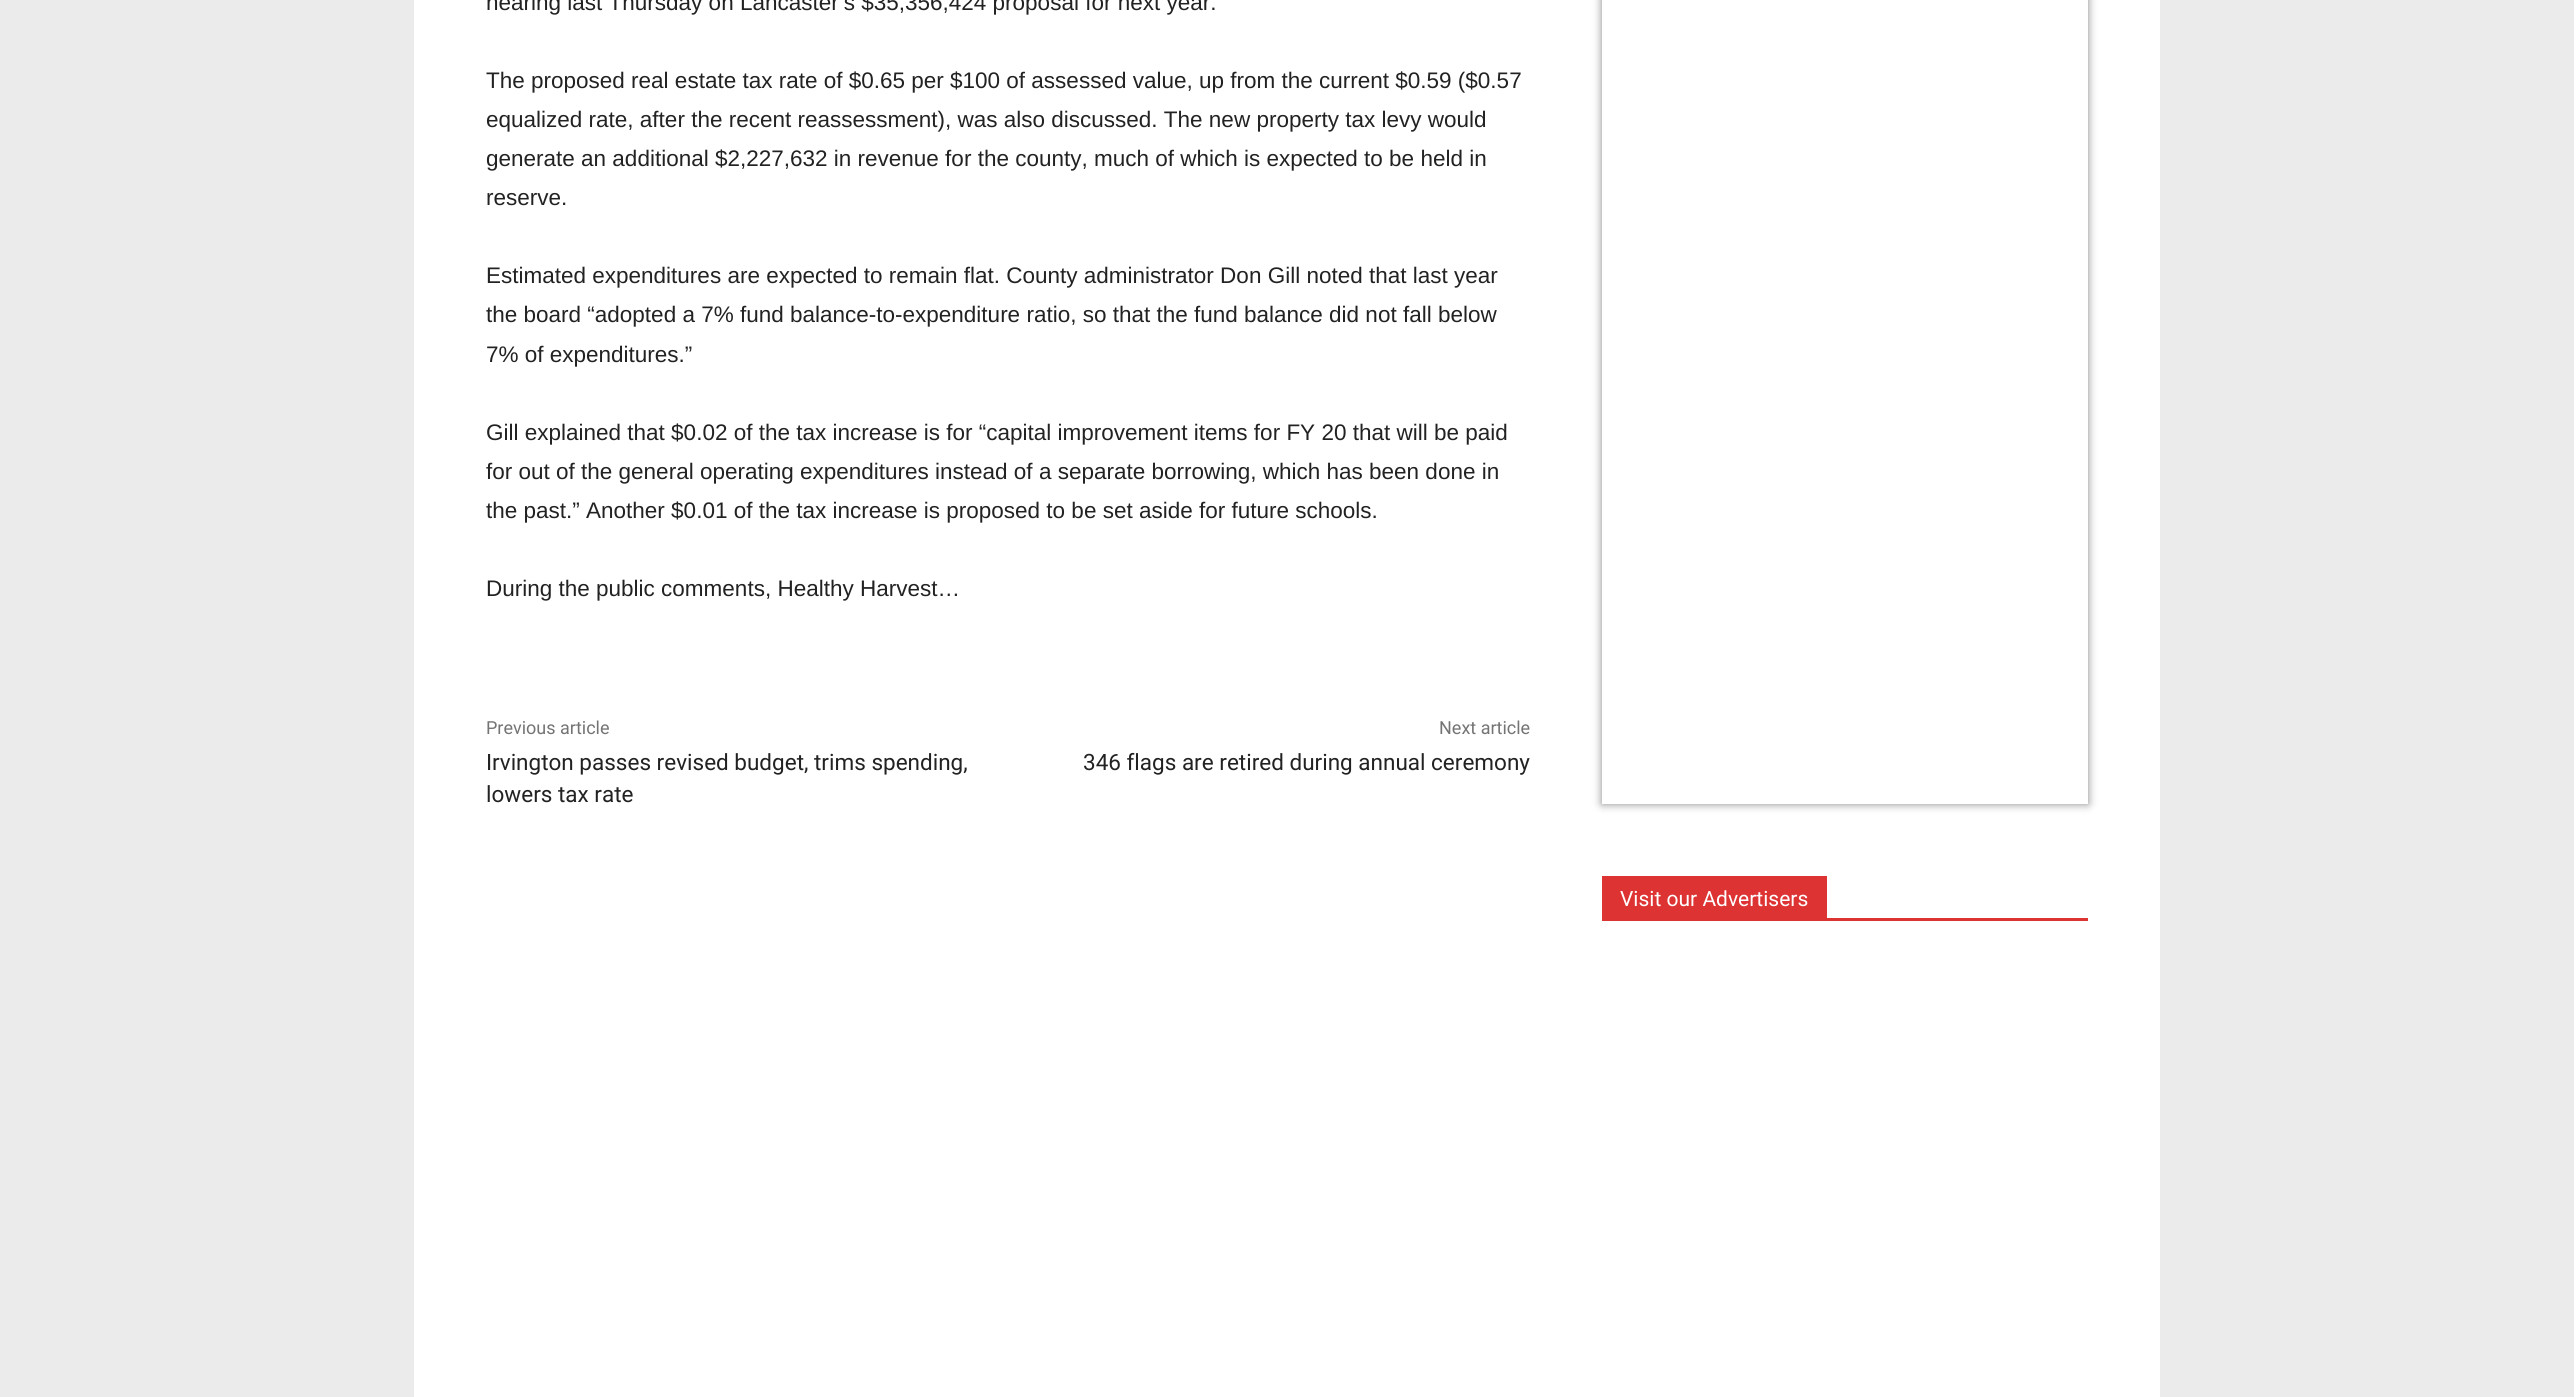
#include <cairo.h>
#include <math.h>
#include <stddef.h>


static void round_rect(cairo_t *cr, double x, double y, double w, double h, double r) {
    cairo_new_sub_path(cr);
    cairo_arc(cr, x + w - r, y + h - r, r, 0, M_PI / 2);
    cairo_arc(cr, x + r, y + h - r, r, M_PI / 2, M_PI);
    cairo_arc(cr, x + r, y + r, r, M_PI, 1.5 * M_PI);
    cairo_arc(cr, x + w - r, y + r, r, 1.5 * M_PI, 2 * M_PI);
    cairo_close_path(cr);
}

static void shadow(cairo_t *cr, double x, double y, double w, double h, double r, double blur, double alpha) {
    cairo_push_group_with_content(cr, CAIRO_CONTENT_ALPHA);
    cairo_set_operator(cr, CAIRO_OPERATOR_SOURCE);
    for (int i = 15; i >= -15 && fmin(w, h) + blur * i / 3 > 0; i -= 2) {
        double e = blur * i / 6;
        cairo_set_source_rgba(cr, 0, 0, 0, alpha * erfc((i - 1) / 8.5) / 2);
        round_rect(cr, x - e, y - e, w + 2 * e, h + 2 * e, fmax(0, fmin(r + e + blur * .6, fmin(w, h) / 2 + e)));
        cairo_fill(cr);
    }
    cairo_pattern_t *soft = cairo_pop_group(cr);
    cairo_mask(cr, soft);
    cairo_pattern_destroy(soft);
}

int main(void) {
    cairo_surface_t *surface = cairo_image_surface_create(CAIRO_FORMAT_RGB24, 2574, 1397);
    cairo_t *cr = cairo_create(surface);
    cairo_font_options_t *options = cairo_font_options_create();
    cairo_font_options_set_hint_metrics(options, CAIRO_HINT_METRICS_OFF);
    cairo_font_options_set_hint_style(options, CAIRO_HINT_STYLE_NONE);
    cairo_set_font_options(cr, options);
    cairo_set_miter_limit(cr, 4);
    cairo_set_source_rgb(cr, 0.918, 0.918, 0.918);
    cairo_paint(cr);
    cairo_set_source_rgb(cr, 1, 1, 1);
    cairo_rectangle(cr, 414, 0, 1746, 1397);
    cairo_fill(cr);
    cairo_select_font_face(cr, "Liberation Sans", CAIRO_FONT_SLANT_NORMAL, CAIRO_FONT_WEIGHT_NORMAL);
    cairo_set_font_size(cr, 22.5);
    cairo_set_source_rgb(cr, 0.133, 0.133, 0.133);
    cairo_move_to(cr, 486, 10);
    cairo_show_text(cr, "hearing last Thursday on Lancaster’s $35,356,424 proposal for next year.");
    cairo_move_to(cr, 486, 88);
    cairo_show_text(cr, "The proposed real estate tax rate of $0.65 per $100 of assessed value, up from the current $0.59 ($0.57");
    cairo_move_to(cr, 486, 127);
    cairo_show_text(cr, "equalized rate, after the recent reassessment), was also discussed. The new property tax levy would");
    cairo_move_to(cr, 486, 166);
    cairo_show_text(cr, "generate an additional $2,227,632 in revenue for the county, much of which is expected to be held in");
    cairo_move_to(cr, 486, 205);
    cairo_show_text(cr, "reserve.");
    cairo_move_to(cr, 486, 283);
    cairo_show_text(cr, "Estimated expenditures are expected to remain flat. County administrator Don Gill noted that last year");
    cairo_move_to(cr, 486, 322);
    cairo_show_text(cr, "the board “adopted a 7% fund balance-to-expenditure ratio, so that the fund balance did not fall below");
    cairo_move_to(cr, 486, 362);
    cairo_show_text(cr, "7% of expenditures.”");
    cairo_move_to(cr, 486, 440);
    cairo_show_text(cr, "Gill explained that $0.02 of the tax increase is for “capital improvement items for FY 20 that will be paid");
    cairo_move_to(cr, 486, 479);
    cairo_show_text(cr, "for out of the general operating expenditures instead of a separate borrowing, which has been done in");
    cairo_move_to(cr, 486, 518);
    cairo_show_text(cr, "the past.” Another $0.01 of the tax increase is proposed to be set aside for future schools.");
    cairo_move_to(cr, 486, 596);
    cairo_show_text(cr, "During the public comments, Healthy Harvest…");
    cairo_select_font_face(cr, "Roboto", CAIRO_FONT_SLANT_NORMAL, CAIRO_FONT_WEIGHT_NORMAL);
    cairo_set_font_size(cr, 18);
    cairo_set_source_rgb(cr, 0.455, 0.455, 0.455);
    cairo_move_to(cr, 486, 734);
    cairo_show_text(cr, "Previous article");
    cairo_set_font_size(cr, 22.5);
    cairo_set_source_rgb(cr, 0.133, 0.133, 0.133);
    cairo_move_to(cr, 486, 770);
    cairo_show_text(cr, "Irvington passes revised budget, trims spending,");
    cairo_move_to(cr, 486, 802);
    cairo_show_text(cr, "lowers tax rate");
    cairo_set_font_size(cr, 18);
    cairo_set_source_rgb(cr, 0.455, 0.455, 0.455);
    cairo_move_to(cr, 1439, 734);
    cairo_show_text(cr, "Next article");
    cairo_set_font_size(cr, 22.5);
    cairo_set_source_rgb(cr, 0.133, 0.133, 0.133);
    cairo_move_to(cr, 1083, 770);
    cairo_show_text(cr, "346 flags are retired during annual ceremony");
    cairo_save(cr);
    cairo_set_fill_rule(cr, CAIRO_FILL_RULE_EVEN_ODD);
    cairo_new_path(cr);
    cairo_move_to(cr, 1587, 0);
    cairo_line_to(cr, 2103, 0);
    cairo_line_to(cr, 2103, 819);
    cairo_line_to(cr, 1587, 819);
    cairo_close_path(cr);
    cairo_move_to(cr, 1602, -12);
    cairo_line_to(cr, 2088, -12);
    cairo_line_to(cr, 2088, 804);
    cairo_line_to(cr, 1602, 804);
    cairo_close_path(cr);
    cairo_clip(cr);
    cairo_set_source_rgb(cr, 0.533, 0.533, 0.533);
    shadow(cr, 1602, -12, 486, 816, 0, 4.5, 1);
    cairo_restore(cr);
    cairo_set_source_rgb(cr, 0.867, 0.2, 0.2);
    cairo_rectangle(cr, 1602, 918, 486, 3);
    cairo_fill(cr);
    cairo_rectangle(cr, 1602, 876, 225, 42);
    cairo_fill(cr);
    cairo_set_font_size(cr, 21);
    cairo_set_source_rgb(cr, 1, 1, 1);
    cairo_move_to(cr, 1620, 906);
    cairo_show_text(cr, "Visit our Advertisers");
    cairo_surface_write_to_png(surface, "page.png");
    cairo_font_options_destroy(options);
    cairo_destroy(cr);
    cairo_surface_destroy(surface);
    return 0;
}
